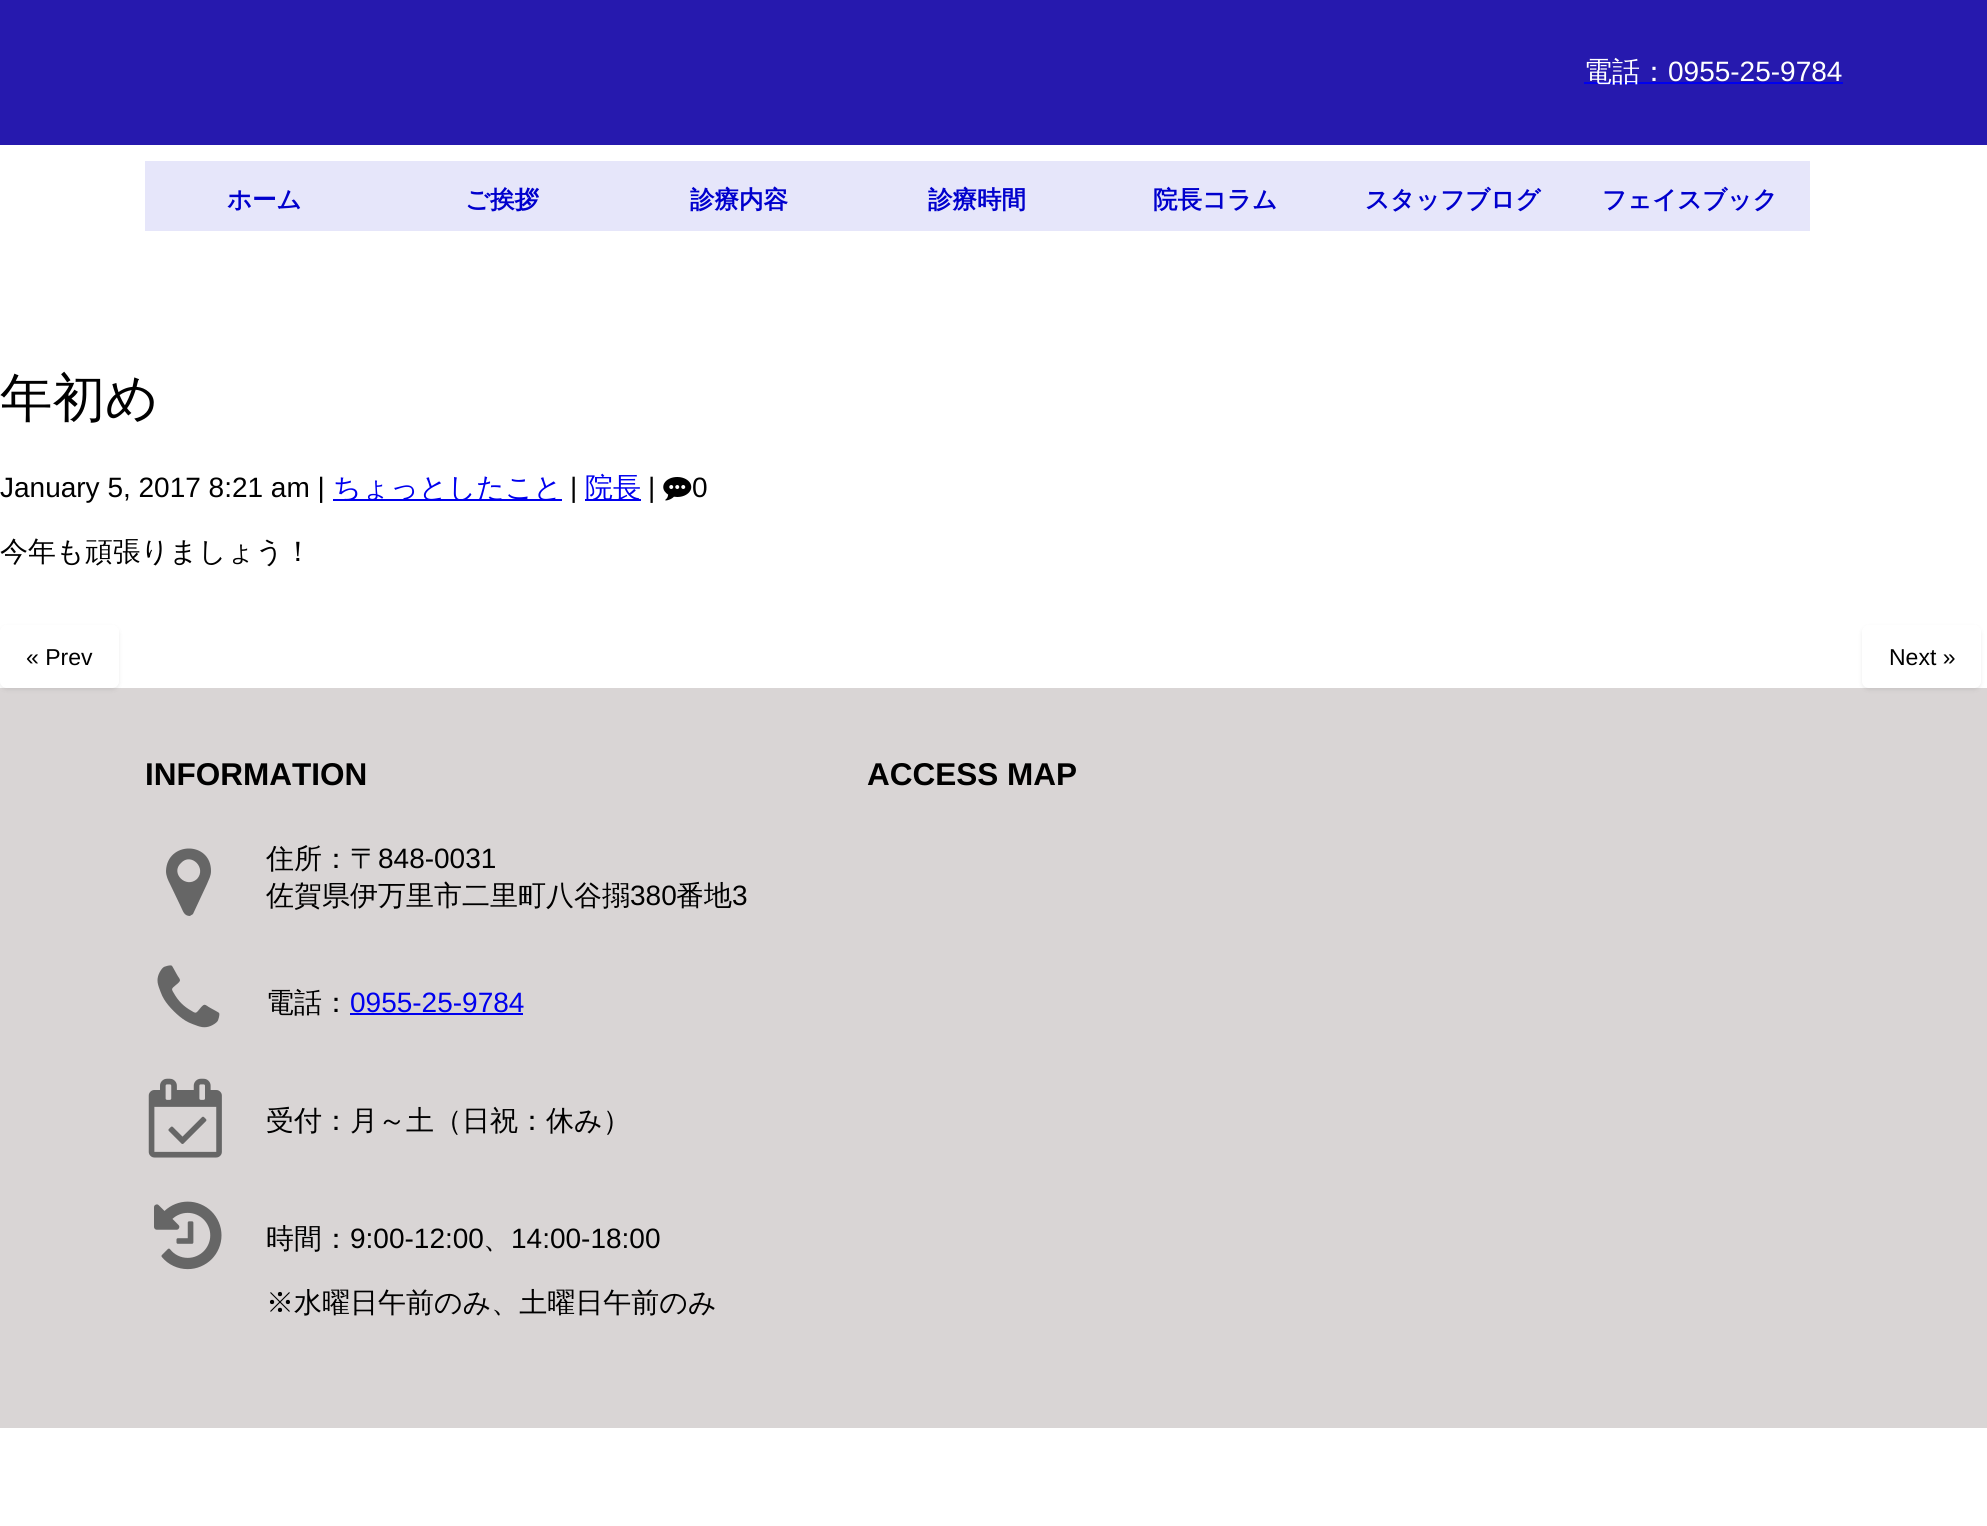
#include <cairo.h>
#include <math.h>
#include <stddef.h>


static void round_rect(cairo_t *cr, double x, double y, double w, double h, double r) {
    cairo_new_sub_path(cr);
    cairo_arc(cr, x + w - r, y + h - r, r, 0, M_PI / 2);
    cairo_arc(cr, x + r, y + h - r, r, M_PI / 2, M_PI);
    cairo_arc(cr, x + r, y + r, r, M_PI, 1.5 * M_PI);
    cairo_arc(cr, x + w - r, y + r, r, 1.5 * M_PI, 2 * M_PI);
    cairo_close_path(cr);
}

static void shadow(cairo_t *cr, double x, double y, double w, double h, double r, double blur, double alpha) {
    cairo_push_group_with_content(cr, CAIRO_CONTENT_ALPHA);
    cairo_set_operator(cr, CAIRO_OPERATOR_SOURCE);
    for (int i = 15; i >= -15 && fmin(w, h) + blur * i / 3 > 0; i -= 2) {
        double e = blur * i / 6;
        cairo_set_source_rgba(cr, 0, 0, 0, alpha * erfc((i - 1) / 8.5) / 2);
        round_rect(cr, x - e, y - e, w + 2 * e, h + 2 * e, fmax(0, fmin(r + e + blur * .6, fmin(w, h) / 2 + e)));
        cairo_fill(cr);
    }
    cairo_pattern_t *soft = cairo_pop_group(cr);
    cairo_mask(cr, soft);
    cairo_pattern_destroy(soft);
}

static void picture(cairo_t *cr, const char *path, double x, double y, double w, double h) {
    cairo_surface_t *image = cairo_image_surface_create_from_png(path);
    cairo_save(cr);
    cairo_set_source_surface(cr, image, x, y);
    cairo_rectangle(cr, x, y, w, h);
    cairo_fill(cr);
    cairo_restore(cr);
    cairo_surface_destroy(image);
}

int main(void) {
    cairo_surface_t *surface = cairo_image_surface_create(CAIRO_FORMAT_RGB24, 1987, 1526);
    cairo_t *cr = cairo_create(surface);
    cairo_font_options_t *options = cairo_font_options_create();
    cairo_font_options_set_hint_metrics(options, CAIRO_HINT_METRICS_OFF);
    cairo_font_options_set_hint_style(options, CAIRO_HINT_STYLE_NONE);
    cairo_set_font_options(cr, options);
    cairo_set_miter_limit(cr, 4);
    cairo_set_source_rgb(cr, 1, 1, 1);
    cairo_paint(cr);
    cairo_set_source_rgb(cr, 0.149, 0.098, 0.682);
    cairo_rectangle(cr, 0, 0, 1987, 145);
    cairo_fill(cr);
    cairo_set_source_rgb(cr, 0, 0, 0.933);
    cairo_rectangle(cr, 1584, 82, 259, 2);
    cairo_fill(cr);
    cairo_select_font_face(cr, "WenQuanYi Zen Hei Medium", CAIRO_FONT_SLANT_NORMAL, CAIRO_FONT_WEIGHT_NORMAL);
    cairo_set_font_size(cr, 28);
    cairo_set_source_rgb(cr, 1, 1, 1);
    cairo_move_to(cr, 1584, 81);
    cairo_show_text(cr, "電話：");
    cairo_select_font_face(cr, "Liberation Sans", CAIRO_FONT_SLANT_NORMAL, CAIRO_FONT_WEIGHT_NORMAL);
    cairo_move_to(cr, 1668, 81);
    cairo_show_text(cr, "0955-25-9784");
    cairo_set_source_rgb(cr, 0.902, 0.902, 0.98);
    cairo_rectangle(cr, 145, 161, 1665, 70);
    cairo_fill(cr);
    cairo_select_font_face(cr, "WenQuanYi Zen Hei", CAIRO_FONT_SLANT_NORMAL, CAIRO_FONT_WEIGHT_BOLD);
    cairo_set_font_size(cr, 24.5);
    cairo_set_source_rgb(cr, 0, 0, 0.804);
    cairo_move_to(cr, 227, 208);
    cairo_show_text(cr, "ホーム");
    cairo_move_to(cr, 465, 208);
    cairo_show_text(cr, "ご挨拶");
    cairo_move_to(cr, 690, 208);
    cairo_show_text(cr, "診療内容");
    cairo_move_to(cr, 928, 208);
    cairo_show_text(cr, "診療時間");
    cairo_move_to(cr, 1153, 208);
    cairo_show_text(cr, "院長コラム");
    cairo_move_to(cr, 1365, 208);
    cairo_show_text(cr, "スタッフブログ");
    cairo_move_to(cr, 1602, 208);
    cairo_show_text(cr, "フェイスブック");
    cairo_select_font_face(cr, "WenQuanYi Zen Hei Medium", CAIRO_FONT_SLANT_NORMAL, CAIRO_FONT_WEIGHT_NORMAL);
    cairo_set_font_size(cr, 52.5);
    cairo_set_source_rgb(cr, 0, 0, 0);
    cairo_move_to(cr, 0, 416);
    cairo_show_text(cr, "年初め");
    cairo_select_font_face(cr, "Liberation Sans", CAIRO_FONT_SLANT_NORMAL, CAIRO_FONT_WEIGHT_NORMAL);
    cairo_set_font_size(cr, 28);
    cairo_move_to(cr, 0, 497);
    cairo_show_text(cr, "January 5, 2017 8:21 am |");
    cairo_set_source_rgb(cr, 0, 0, 0.933);
    cairo_rectangle(cr, 333, 499, 229, 2);
    cairo_fill(cr);
    cairo_select_font_face(cr, "WenQuanYi Zen Hei Medium", CAIRO_FONT_SLANT_NORMAL, CAIRO_FONT_WEIGHT_NORMAL);
    cairo_move_to(cr, 333, 497);
    cairo_show_text(cr, "ちょっとしたこと");
    cairo_select_font_face(cr, "Liberation Sans", CAIRO_FONT_SLANT_NORMAL, CAIRO_FONT_WEIGHT_NORMAL);
    cairo_set_source_rgb(cr, 0, 0, 0);
    cairo_move_to(cr, 570, 497);
    cairo_show_text(cr, "|");
    cairo_set_source_rgb(cr, 0, 0, 0.933);
    cairo_rectangle(cr, 585, 499, 56, 2);
    cairo_fill(cr);
    cairo_select_font_face(cr, "WenQuanYi Zen Hei Medium", CAIRO_FONT_SLANT_NORMAL, CAIRO_FONT_WEIGHT_NORMAL);
    cairo_move_to(cr, 585, 497);
    cairo_show_text(cr, "院長");
    cairo_select_font_face(cr, "Liberation Sans", CAIRO_FONT_SLANT_NORMAL, CAIRO_FONT_WEIGHT_NORMAL);
    cairo_set_source_rgb(cr, 0, 0, 0);
    cairo_move_to(cr, 648, 497);
    cairo_show_text(cr, "|");
    picture(cr, "img1.png", 663, 477, 29, 24);
    cairo_move_to(cr, 692, 497);
    cairo_show_text(cr, "0");
    cairo_select_font_face(cr, "WenQuanYi Zen Hei Medium", CAIRO_FONT_SLANT_NORMAL, CAIRO_FONT_WEIGHT_NORMAL);
    cairo_move_to(cr, 0, 561);
    cairo_show_text(cr, "今年も頑張りましょう！");
    cairo_set_source_rgb(cr, 0.851, 0.835, 0.835);
    cairo_rectangle(cr, 0, 688, 1987, 740);
    cairo_fill(cr);
    cairo_save(cr);
    cairo_set_fill_rule(cr, CAIRO_FILL_RULE_EVEN_ODD);
    cairo_new_path(cr);
    cairo_move_to(cr, 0, 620);
    cairo_line_to(cr, 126, 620);
    cairo_line_to(cr, 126, 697);
    cairo_line_to(cr, 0, 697);
    cairo_close_path(cr);
    cairo_move_to(cr, 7, 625);
    cairo_line_to(cr, 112, 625);
    cairo_curve_to(cr, 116, 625, 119, 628, 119, 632);
    cairo_line_to(cr, 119, 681);
    cairo_curve_to(cr, 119, 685, 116, 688, 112, 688);
    cairo_line_to(cr, 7, 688);
    cairo_curve_to(cr, 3, 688, 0, 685, 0, 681);
    cairo_line_to(cr, 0, 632);
    cairo_curve_to(cr, 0, 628, 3, 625, 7, 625);
    cairo_close_path(cr);
    cairo_clip(cr);
    cairo_set_source_rgb(cr, 0.196, 0.196, 0.196);
    shadow(cr, 0, 627, 119, 63, 7, 2, 0.1);
    cairo_restore(cr);
    cairo_select_font_face(cr, "Liberation Sans", CAIRO_FONT_SLANT_NORMAL, CAIRO_FONT_WEIGHT_NORMAL);
    cairo_set_font_size(cr, 23);
    cairo_set_source_rgb(cr, 0, 0, 0);
    cairo_move_to(cr, 26, 665);
    cairo_show_text(cr, "« Prev");
    cairo_save(cr);
    cairo_set_fill_rule(cr, CAIRO_FILL_RULE_EVEN_ODD);
    cairo_new_path(cr);
    cairo_move_to(cr, 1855, 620);
    cairo_line_to(cr, 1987, 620);
    cairo_line_to(cr, 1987, 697);
    cairo_line_to(cr, 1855, 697);
    cairo_close_path(cr);
    cairo_move_to(cr, 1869, 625);
    cairo_line_to(cr, 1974, 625);
    cairo_curve_to(cr, 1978, 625, 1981, 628, 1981, 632);
    cairo_line_to(cr, 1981, 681);
    cairo_curve_to(cr, 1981, 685, 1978, 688, 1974, 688);
    cairo_line_to(cr, 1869, 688);
    cairo_curve_to(cr, 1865, 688, 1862, 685, 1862, 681);
    cairo_line_to(cr, 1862, 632);
    cairo_curve_to(cr, 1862, 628, 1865, 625, 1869, 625);
    cairo_close_path(cr);
    cairo_clip(cr);
    cairo_set_source_rgb(cr, 0.196, 0.196, 0.196);
    shadow(cr, 1862, 627, 119, 63, 7, 2, 0.1);
    cairo_restore(cr);
    cairo_move_to(cr, 1889, 665);
    cairo_show_text(cr, "Next »");
    cairo_select_font_face(cr, "Liberation Sans", CAIRO_FONT_SLANT_NORMAL, CAIRO_FONT_WEIGHT_BOLD);
    cairo_set_font_size(cr, 31.5);
    cairo_move_to(cr, 145, 785);
    cairo_show_text(cr, "INFORMATION");
    cairo_set_source_rgb(cr, 0.4, 0.4, 0.4);
    cairo_new_path(cr);
    cairo_move_to(cr, 197, 879);
    cairo_curve_to(cr, 207, 868, 191, 852, 181, 863);
    cairo_curve_to(cr, 170, 873, 186, 889, 197, 879);
    cairo_close_path(cr);
    cairo_move_to(cr, 211, 871);
    cairo_curve_to(cr, 211, 876, 209, 879, 207, 884);
    cairo_line_to(cr, 193, 914);
    cairo_curve_to(cr, 192, 915, 191, 915, 190, 916);
    cairo_curve_to(cr, 184, 916, 183, 911, 181, 907);
    cairo_line_to(cr, 170, 884);
    cairo_curve_to(cr, 168, 880, 166, 876, 166, 871);
    cairo_curve_to(cr, 167, 841, 211, 841, 211, 871);
    cairo_close_path(cr);
    cairo_fill(cr);
    cairo_select_font_face(cr, "WenQuanYi Zen Hei Medium", CAIRO_FONT_SLANT_NORMAL, CAIRO_FONT_WEIGHT_NORMAL);
    cairo_set_font_size(cr, 28);
    cairo_set_source_rgb(cr, 0, 0, 0);
    cairo_move_to(cr, 266, 868);
    cairo_show_text(cr, "住所：〒");
    cairo_select_font_face(cr, "Liberation Sans", CAIRO_FONT_SLANT_NORMAL, CAIRO_FONT_WEIGHT_NORMAL);
    cairo_move_to(cr, 378, 868);
    cairo_show_text(cr, "848-0031");
    cairo_select_font_face(cr, "WenQuanYi Zen Hei Medium", CAIRO_FONT_SLANT_NORMAL, CAIRO_FONT_WEIGHT_NORMAL);
    cairo_move_to(cr, 266, 905);
    cairo_show_text(cr, "佐賀県伊万里市二里町八谷搦");
    cairo_select_font_face(cr, "Liberation Sans", CAIRO_FONT_SLANT_NORMAL, CAIRO_FONT_WEIGHT_NORMAL);
    cairo_move_to(cr, 630, 905);
    cairo_show_text(cr, "380");
    cairo_select_font_face(cr, "WenQuanYi Zen Hei Medium", CAIRO_FONT_SLANT_NORMAL, CAIRO_FONT_WEIGHT_NORMAL);
    cairo_move_to(cr, 676, 905);
    cairo_show_text(cr, "番地");
    cairo_select_font_face(cr, "Liberation Sans", CAIRO_FONT_SLANT_NORMAL, CAIRO_FONT_WEIGHT_NORMAL);
    cairo_move_to(cr, 732, 905);
    cairo_show_text(cr, "3");
    picture(cr, "img2.png", 157, 965, 63, 63);
    cairo_select_font_face(cr, "WenQuanYi Zen Hei Medium", CAIRO_FONT_SLANT_NORMAL, CAIRO_FONT_WEIGHT_NORMAL);
    cairo_move_to(cr, 266, 1012);
    cairo_show_text(cr, "電話：");
    cairo_select_font_face(cr, "Liberation Sans", CAIRO_FONT_SLANT_NORMAL, CAIRO_FONT_WEIGHT_NORMAL);
    cairo_set_source_rgb(cr, 0, 0, 0.933);
    cairo_move_to(cr, 350, 1012);
    cairo_show_text(cr, "0955-25-9784");
    cairo_rectangle(cr, 350, 1013, 173, 2);
    cairo_fill(cr);
    picture(cr, "img3.png", 148, 1078, 74, 80);
    cairo_select_font_face(cr, "WenQuanYi Zen Hei Medium", CAIRO_FONT_SLANT_NORMAL, CAIRO_FONT_WEIGHT_NORMAL);
    cairo_set_source_rgb(cr, 0, 0, 0);
    cairo_move_to(cr, 266, 1130);
    cairo_show_text(cr, "受付：月～土（日祝：休み）");
    picture(cr, "img4.png", 154, 1201, 68, 69);
    cairo_move_to(cr, 266, 1248);
    cairo_show_text(cr, "時間：");
    cairo_select_font_face(cr, "Liberation Sans", CAIRO_FONT_SLANT_NORMAL, CAIRO_FONT_WEIGHT_NORMAL);
    cairo_move_to(cr, 350, 1248);
    cairo_show_text(cr, "9:00-12:00");
    cairo_select_font_face(cr, "WenQuanYi Zen Hei Medium", CAIRO_FONT_SLANT_NORMAL, CAIRO_FONT_WEIGHT_NORMAL);
    cairo_move_to(cr, 483, 1248);
    cairo_show_text(cr, "、");
    cairo_select_font_face(cr, "Liberation Sans", CAIRO_FONT_SLANT_NORMAL, CAIRO_FONT_WEIGHT_NORMAL);
    cairo_move_to(cr, 511, 1248);
    cairo_show_text(cr, "14:00-18:00");
    cairo_select_font_face(cr, "WenQuanYi Zen Hei Medium", CAIRO_FONT_SLANT_NORMAL, CAIRO_FONT_WEIGHT_NORMAL);
    cairo_move_to(cr, 266, 1312);
    cairo_show_text(cr, "※水曜日午前のみ、土曜日午前のみ");
    cairo_select_font_face(cr, "Liberation Sans", CAIRO_FONT_SLANT_NORMAL, CAIRO_FONT_WEIGHT_BOLD);
    cairo_set_font_size(cr, 31.5);
    cairo_move_to(cr, 867, 785);
    cairo_show_text(cr, "ACCESS MAP");
    cairo_surface_write_to_png(surface, "page.png");
    cairo_font_options_destroy(options);
    cairo_destroy(cr);
    cairo_surface_destroy(surface);
    return 0;
}
